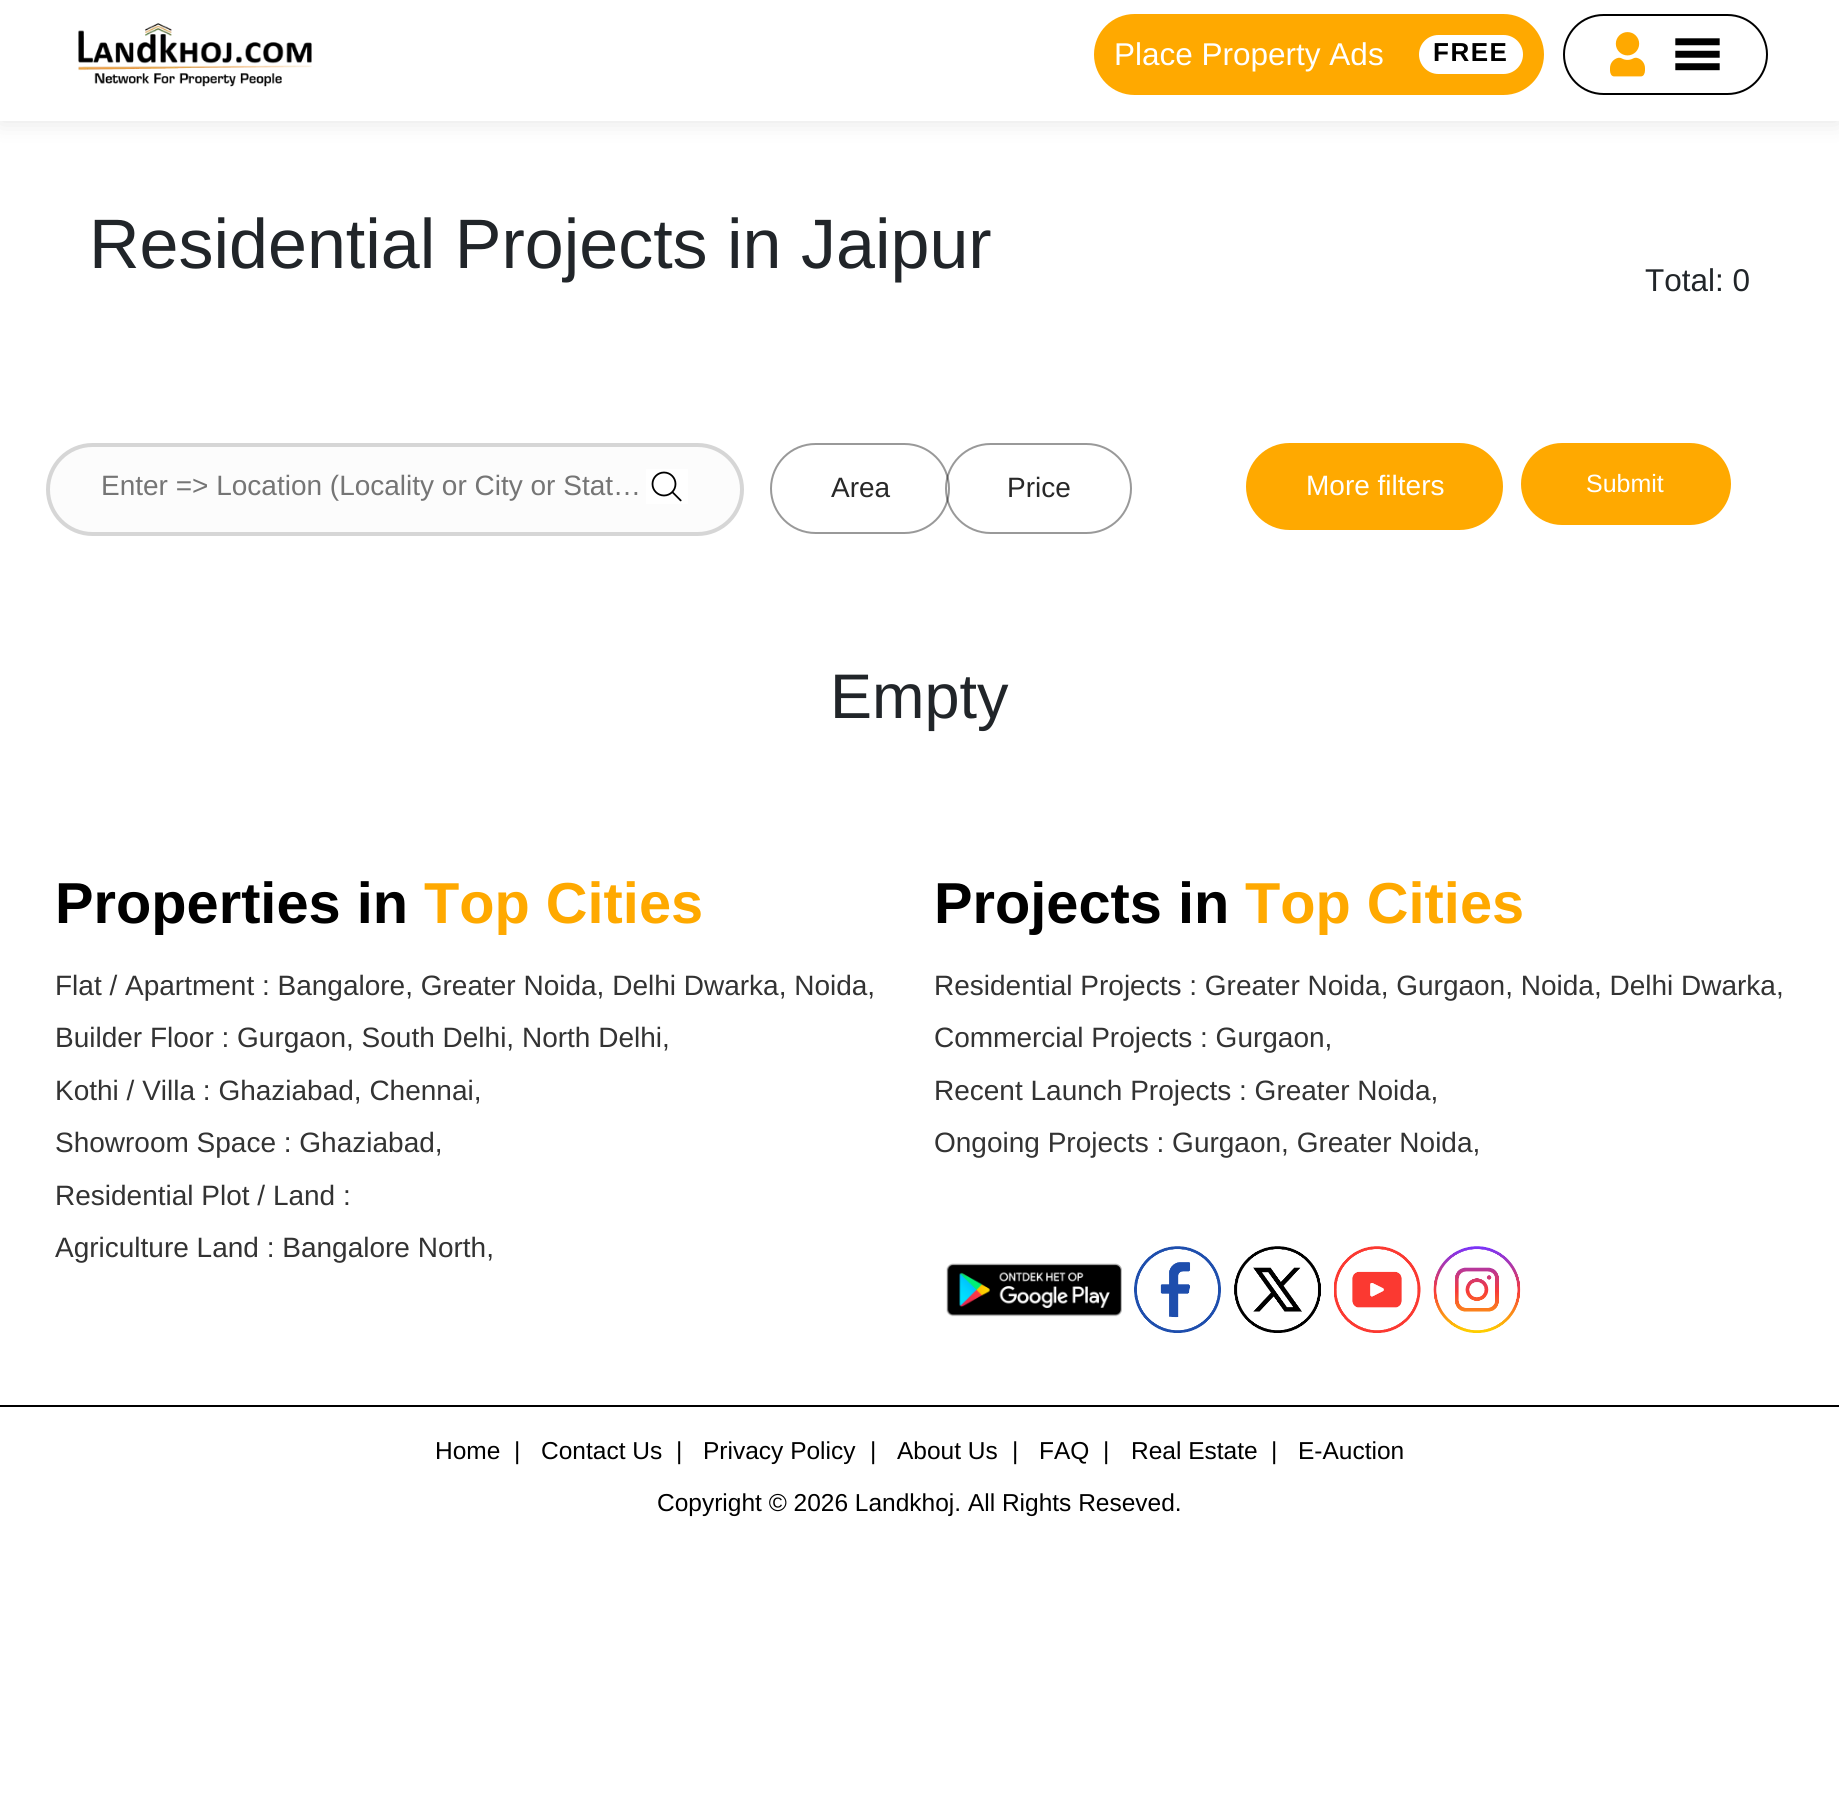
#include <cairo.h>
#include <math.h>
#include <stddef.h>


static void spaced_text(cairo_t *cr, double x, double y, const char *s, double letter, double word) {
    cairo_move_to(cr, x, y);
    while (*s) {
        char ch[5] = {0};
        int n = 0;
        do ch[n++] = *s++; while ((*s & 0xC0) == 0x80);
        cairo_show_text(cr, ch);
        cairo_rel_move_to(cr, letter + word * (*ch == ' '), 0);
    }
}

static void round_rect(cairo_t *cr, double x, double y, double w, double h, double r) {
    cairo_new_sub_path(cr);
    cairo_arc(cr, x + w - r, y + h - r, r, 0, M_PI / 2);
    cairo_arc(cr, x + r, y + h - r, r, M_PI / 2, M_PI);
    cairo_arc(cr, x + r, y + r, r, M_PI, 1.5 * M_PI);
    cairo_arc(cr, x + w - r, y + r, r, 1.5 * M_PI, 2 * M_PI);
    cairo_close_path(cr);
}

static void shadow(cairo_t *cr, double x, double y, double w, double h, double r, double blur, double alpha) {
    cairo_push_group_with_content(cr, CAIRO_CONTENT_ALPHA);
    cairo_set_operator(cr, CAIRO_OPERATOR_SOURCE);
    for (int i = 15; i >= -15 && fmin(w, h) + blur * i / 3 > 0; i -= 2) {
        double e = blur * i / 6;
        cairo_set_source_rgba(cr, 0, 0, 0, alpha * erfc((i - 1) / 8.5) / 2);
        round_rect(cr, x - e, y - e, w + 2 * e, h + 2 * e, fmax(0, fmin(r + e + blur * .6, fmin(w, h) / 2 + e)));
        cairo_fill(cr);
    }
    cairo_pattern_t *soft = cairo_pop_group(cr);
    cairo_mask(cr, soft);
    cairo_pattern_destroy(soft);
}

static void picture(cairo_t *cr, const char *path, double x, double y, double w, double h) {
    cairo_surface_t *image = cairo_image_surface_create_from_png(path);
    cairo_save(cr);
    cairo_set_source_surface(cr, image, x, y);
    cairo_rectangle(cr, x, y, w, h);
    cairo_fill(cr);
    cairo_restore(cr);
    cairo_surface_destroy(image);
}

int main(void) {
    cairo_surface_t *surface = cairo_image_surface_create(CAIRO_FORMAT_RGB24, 1839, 1807);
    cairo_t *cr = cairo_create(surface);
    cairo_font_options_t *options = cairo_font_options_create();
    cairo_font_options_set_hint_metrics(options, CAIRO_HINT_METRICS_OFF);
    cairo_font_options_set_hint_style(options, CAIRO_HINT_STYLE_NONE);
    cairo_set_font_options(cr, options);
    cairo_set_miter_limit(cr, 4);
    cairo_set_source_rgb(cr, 1, 1, 1);
    cairo_paint(cr);
    cairo_set_source_rgb(cr, 0, 0, 0);
    shadow(cr, 0, 0, 1839, 121, 0, 12, 0.11);
    cairo_set_source_rgb(cr, 1, 1, 1);
    cairo_rectangle(cr, 0, 0, 1839, 121);
    cairo_fill(cr);
    picture(cr, "img1.png", 78, 23, 234, 64);
    cairo_set_source_rgb(cr, 1, 0.663, 0);
    round_rect(cr, 1094, 14, 450, 81, 40.5);
    cairo_fill(cr);
    cairo_select_font_face(cr, "Liberation Sans", CAIRO_FONT_SLANT_NORMAL, CAIRO_FONT_WEIGHT_NORMAL);
    cairo_set_font_size(cr, 31.5);
    cairo_set_source_rgb(cr, 1, 1, 1);
    cairo_move_to(cr, 1114, 65);
    cairo_show_text(cr, "Place Property Ads");
    round_rect(cr, 1419, 35, 104, 39, 19.5);
    cairo_fill(cr);
    cairo_select_font_face(cr, "Liberation Sans", CAIRO_FONT_SLANT_NORMAL, CAIRO_FONT_WEIGHT_BOLD);
    cairo_set_font_size(cr, 26);
    cairo_set_source_rgb(cr, 0, 0, 0);
    spaced_text(cr, 1433, 61, "FREE", 1.5, 0);
    round_rect(cr, 1564, 15, 203, 79, 39.5);
    cairo_stroke(cr);
    picture(cr, "img2.png", 1610, 32, 35, 45);
    picture(cr, "img3.png", 1675, 38, 45, 33);
    cairo_select_font_face(cr, "Liberation Sans", CAIRO_FONT_SLANT_NORMAL, CAIRO_FONT_WEIGHT_NORMAL);
    cairo_set_font_size(cr, 70);
    cairo_set_source_rgb(cr, 0.129, 0.145, 0.161);
    cairo_move_to(cr, 89, 268);
    cairo_show_text(cr, "Residential Projects in Jaipur");
    cairo_set_font_size(cr, 31.5);
    cairo_move_to(cr, 1645, 291);
    cairo_show_text(cr, "Total: 0");
    cairo_set_source_rgb(cr, 0.988, 0.988, 0.988);
    round_rect(cr, 48, 445, 694, 89, 44.5);
    cairo_fill_preserve(cr);
    cairo_set_source_rgb(cr, 0.839, 0.839, 0.839);
    cairo_set_line_width(cr, 4);
    cairo_stroke(cr);
    cairo_set_source_rgb(cr, 1, 1, 1);
    cairo_rectangle(cr, 646, 469, 42, 35);
    cairo_fill(cr);
    cairo_arc(cr, 664, 484, 11.5, 0, 2 * M_PI);
    cairo_set_source_rgb(cr, 0, 0, 0);
    cairo_set_line_width(cr, 1.8);
    cairo_stroke(cr);
    cairo_new_path(cr);
    cairo_move_to(cr, 680, 501);
    cairo_curve_to(cr, 681, 502, 682, 500.5, 681.5, 500);
    cairo_close_path(cr);
    cairo_move_to(cr, 681.5, 500);
    cairo_line_to(cr, 672.5, 491);
    cairo_line_to(cr, 671.5, 492.5);
    cairo_line_to(cr, 680, 501);
    cairo_close_path(cr);
    cairo_fill(cr);
    cairo_set_font_size(cr, 28);
    cairo_set_source_rgb(cr, 0.459, 0.459, 0.459);
    cairo_move_to(cr, 101, 495);
    cairo_show_text(cr, "Enter => Location (Locality or City or Stat…");
    round_rect(cr, 771, 444, 178, 89, 44.5);
    cairo_set_source_rgb(cr, 0.6, 0.6, 0.6);
    cairo_set_line_width(cr, 2);
    cairo_stroke(cr);
    cairo_set_source_rgb(cr, 0.157, 0.157, 0.157);
    cairo_move_to(cr, 831, 497);
    cairo_show_text(cr, "Area");
    round_rect(cr, 946, 444, 185, 89, 44.5);
    cairo_set_source_rgba(cr, 0, 0, 0, 0.4);
    cairo_stroke(cr);
    cairo_set_source_rgb(cr, 0.157, 0.157, 0.157);
    cairo_move_to(cr, 1007, 497);
    cairo_show_text(cr, "Price");
    cairo_set_source_rgb(cr, 1, 0.663, 0);
    round_rect(cr, 1246, 443, 257, 87, 43.5);
    cairo_fill(cr);
    cairo_set_source_rgb(cr, 1, 1, 1);
    cairo_move_to(cr, 1306, 495);
    cairo_show_text(cr, "More filters");
    cairo_set_source_rgb(cr, 1, 0.663, 0);
    round_rect(cr, 1521, 443, 210, 82, 41);
    cairo_fill(cr);
    cairo_set_font_size(cr, 25);
    cairo_set_source_rgb(cr, 1, 1, 1);
    cairo_move_to(cr, 1586, 492);
    cairo_show_text(cr, "Submit");
    cairo_set_font_size(cr, 63);
    cairo_set_source_rgb(cr, 0.129, 0.145, 0.161);
    cairo_move_to(cr, 830, 718);
    cairo_show_text(cr, "Empty");
    cairo_select_font_face(cr, "Liberation Sans", CAIRO_FONT_SLANT_NORMAL, CAIRO_FONT_WEIGHT_BOLD);
    cairo_set_font_size(cr, 57.75);
    cairo_set_source_rgb(cr, 0, 0, 0);
    cairo_move_to(cr, 55, 923);
    cairo_show_text(cr, "Properties in");
    cairo_set_source_rgb(cr, 1, 0.663, 0);
    cairo_move_to(cr, 424, 923);
    cairo_show_text(cr, "Top Cities");
    cairo_select_font_face(cr, "Liberation Sans", CAIRO_FONT_SLANT_NORMAL, CAIRO_FONT_WEIGHT_NORMAL);
    cairo_set_font_size(cr, 28);
    cairo_set_source_rgb(cr, 0.2, 0.2, 0.2);
    cairo_move_to(cr, 55, 995);
    cairo_show_text(cr, "Flat / Apartment : Bangalore, Greater Noida, Delhi Dwarka, Noida,");
    cairo_move_to(cr, 55, 1047);
    cairo_show_text(cr, "Builder Floor : Gurgaon, South Delhi, North Delhi,");
    cairo_move_to(cr, 55, 1100);
    cairo_show_text(cr, "Kothi / Villa : Ghaziabad, Chennai,");
    cairo_move_to(cr, 55, 1152);
    cairo_show_text(cr, "Showroom Space : Ghaziabad,");
    cairo_move_to(cr, 55, 1205);
    cairo_show_text(cr, "Residential Plot / Land :");
    cairo_move_to(cr, 55, 1257);
    cairo_show_text(cr, "Agriculture Land : Bangalore North,");
    cairo_select_font_face(cr, "Liberation Sans", CAIRO_FONT_SLANT_NORMAL, CAIRO_FONT_WEIGHT_BOLD);
    cairo_set_font_size(cr, 57.75);
    cairo_set_source_rgb(cr, 0, 0, 0);
    cairo_move_to(cr, 934, 923);
    cairo_show_text(cr, "Projects in");
    cairo_set_source_rgb(cr, 1, 0.663, 0);
    cairo_move_to(cr, 1245, 923);
    cairo_show_text(cr, "Top Cities");
    cairo_select_font_face(cr, "Liberation Sans", CAIRO_FONT_SLANT_NORMAL, CAIRO_FONT_WEIGHT_NORMAL);
    cairo_set_font_size(cr, 28);
    cairo_set_source_rgb(cr, 0.2, 0.2, 0.2);
    cairo_move_to(cr, 934, 995);
    cairo_show_text(cr, "Residential Projects : Greater Noida, Gurgaon, Noida, Delhi Dwarka,");
    cairo_move_to(cr, 934, 1047);
    cairo_show_text(cr, "Commercial Projects : Gurgaon,");
    cairo_move_to(cr, 934, 1100);
    cairo_show_text(cr, "Recent Launch Projects : Greater Noida,");
    cairo_move_to(cr, 934, 1152);
    cairo_show_text(cr, "Ongoing Projects : Gurgaon, Greater Noida,");
    picture(cr, "img4.png", 946, 1263, 176, 54);
    picture(cr, "img5.png", 1134, 1246, 87, 87);
    picture(cr, "img6.png", 1234, 1246, 87, 87);
    picture(cr, "img7.png", 1334, 1246, 87, 87);
    picture(cr, "img8.png", 1433, 1246, 88, 87);
    cairo_set_source_rgb(cr, 0, 0, 0);
    cairo_rectangle(cr, 0, 1405, 1839, 2);
    cairo_fill(cr);
    cairo_set_font_size(cr, 24.5);
    cairo_move_to(cr, 435, 1459);
    cairo_show_text(cr, "Home");
    cairo_move_to(cr, 514, 1459);
    cairo_show_text(cr, "|");
    cairo_move_to(cr, 541, 1459);
    cairo_show_text(cr, "Contact Us");
    cairo_move_to(cr, 676, 1459);
    cairo_show_text(cr, "|");
    cairo_move_to(cr, 703, 1459);
    cairo_show_text(cr, "Privacy Policy");
    cairo_move_to(cr, 870, 1459);
    cairo_show_text(cr, "|");
    cairo_move_to(cr, 897, 1459);
    cairo_show_text(cr, "About Us");
    cairo_move_to(cr, 1012, 1459);
    cairo_show_text(cr, "|");
    cairo_move_to(cr, 1039, 1459);
    cairo_show_text(cr, "FAQ");
    cairo_move_to(cr, 1103, 1459);
    cairo_show_text(cr, "|");
    cairo_move_to(cr, 1131, 1459);
    cairo_show_text(cr, "Real Estate");
    cairo_move_to(cr, 1271, 1459);
    cairo_show_text(cr, "|");
    cairo_move_to(cr, 1298, 1459);
    cairo_show_text(cr, "E-Auction");
    cairo_move_to(cr, 657, 1511);
    cairo_show_text(cr, "Copyright © 2026 Landkhoj. All Rights Reseved.");
    cairo_surface_write_to_png(surface, "page.png");
    cairo_font_options_destroy(options);
    cairo_destroy(cr);
    cairo_surface_destroy(surface);
    return 0;
}
